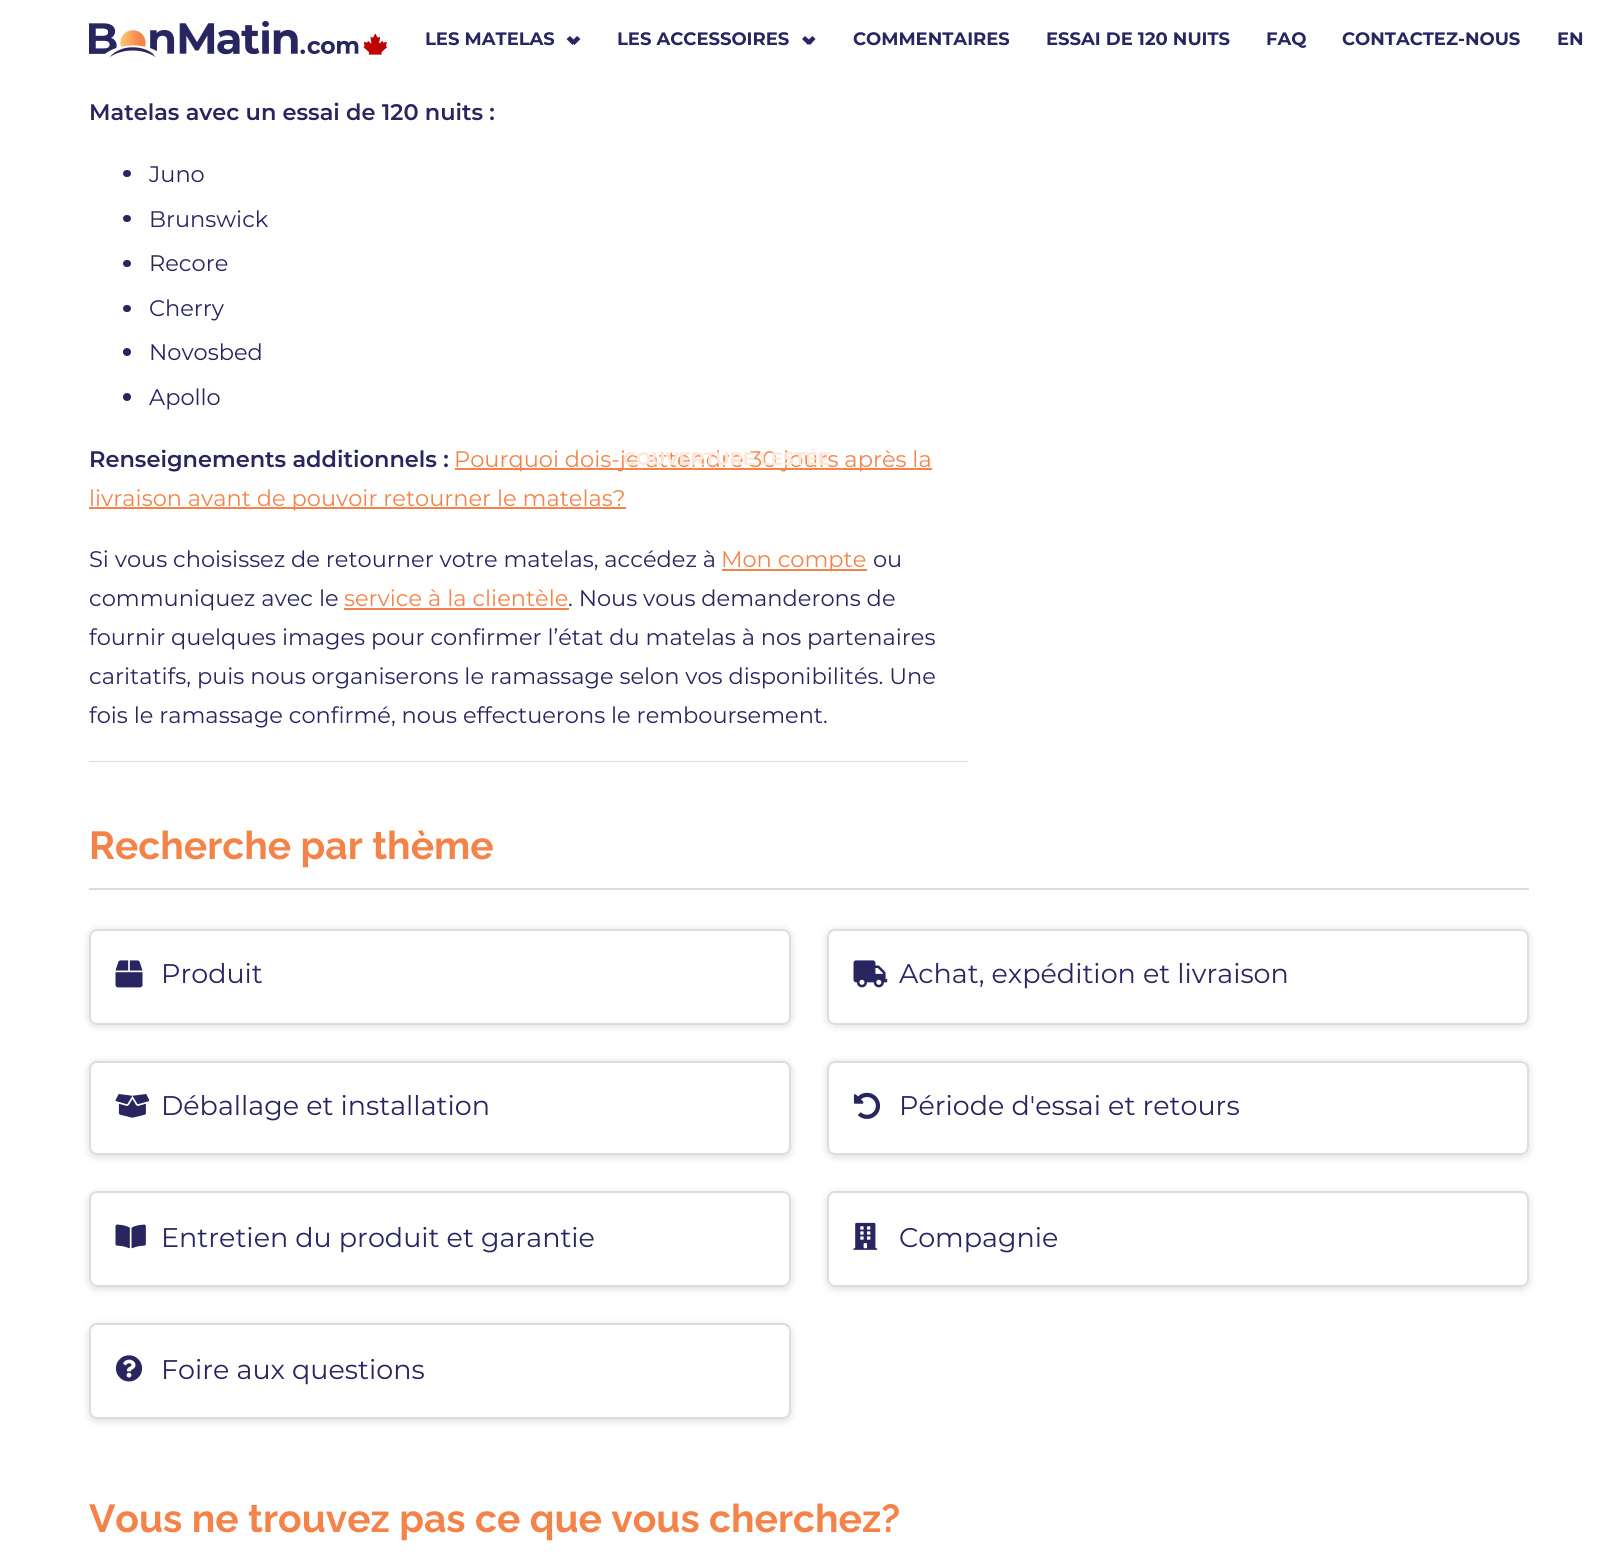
#include <cairo.h>
#include <math.h>
#include <stddef.h>


static void round_rect(cairo_t *cr, double x, double y, double w, double h, double r) {
    cairo_new_sub_path(cr);
    cairo_arc(cr, x + w - r, y + h - r, r, 0, M_PI / 2);
    cairo_arc(cr, x + r, y + h - r, r, M_PI / 2, M_PI);
    cairo_arc(cr, x + r, y + r, r, M_PI, 1.5 * M_PI);
    cairo_arc(cr, x + w - r, y + r, r, 1.5 * M_PI, 2 * M_PI);
    cairo_close_path(cr);
}

static void shadow(cairo_t *cr, double x, double y, double w, double h, double r, double blur, double alpha) {
    cairo_push_group_with_content(cr, CAIRO_CONTENT_ALPHA);
    cairo_set_operator(cr, CAIRO_OPERATOR_SOURCE);
    for (int i = 15; i >= -15 && fmin(w, h) + blur * i / 3 > 0; i -= 2) {
        double e = blur * i / 6;
        cairo_set_source_rgba(cr, 0, 0, 0, alpha * erfc((i - 1) / 8.5) / 2);
        round_rect(cr, x - e, y - e, w + 2 * e, h + 2 * e, fmax(0, fmin(r + e + blur * .6, fmin(w, h) / 2 + e)));
        cairo_fill(cr);
    }
    cairo_pattern_t *soft = cairo_pop_group(cr);
    cairo_mask(cr, soft);
    cairo_pattern_destroy(soft);
}

static void picture(cairo_t *cr, const char *path, double x, double y, double w, double h) {
    cairo_surface_t *image = cairo_image_surface_create_from_png(path);
    cairo_save(cr);
    cairo_set_source_surface(cr, image, x, y);
    cairo_rectangle(cr, x, y, w, h);
    cairo_fill(cr);
    cairo_restore(cr);
    cairo_surface_destroy(image);
}

int main(void) {
    cairo_surface_t *surface = cairo_image_surface_create(CAIRO_FORMAT_RGB24, 1616, 1559);
    cairo_t *cr = cairo_create(surface);
    cairo_font_options_t *options = cairo_font_options_create();
    cairo_font_options_set_hint_metrics(options, CAIRO_HINT_METRICS_OFF);
    cairo_font_options_set_hint_style(options, CAIRO_HINT_STYLE_NONE);
    cairo_set_font_options(cr, options);
    cairo_set_miter_limit(cr, 4);
    cairo_set_source_rgb(cr, 1, 1, 1);
    cairo_paint(cr);
    picture(cr, "img1.png", 89, 21, 299, 36);
    cairo_select_font_face(cr, "Montserrat", CAIRO_FONT_SLANT_NORMAL, CAIRO_FONT_WEIGHT_BOLD);
    cairo_set_font_size(cr, 18);
    cairo_set_source_rgb(cr, 0.157, 0.145, 0.376);
    cairo_move_to(cr, 425, 45);
    cairo_show_text(cr, "LES MATELAS");
    cairo_new_path(cr);
    cairo_move_to(cr, 571.5, 41.5);
    cairo_line_to(cr, 577, 36);
    cairo_line_to(cr, 580.5, 39);
    cairo_line_to(cr, 574.5, 45);
    cairo_close_path(cr);
    cairo_fill(cr);
    cairo_new_path(cr);
    cairo_move_to(cr, 566.5, 39);
    cairo_line_to(cr, 570, 36);
    cairo_line_to(cr, 575.5, 41.5);
    cairo_line_to(cr, 572.5, 45);
    cairo_close_path(cr);
    cairo_fill(cr);
    cairo_move_to(cr, 617, 45);
    cairo_show_text(cr, "LES ACCESSOIRES");
    cairo_new_path(cr);
    cairo_move_to(cr, 806.5, 41.5);
    cairo_line_to(cr, 812.5, 36);
    cairo_line_to(cr, 815.5, 39);
    cairo_line_to(cr, 810, 45);
    cairo_close_path(cr);
    cairo_fill(cr);
    cairo_new_path(cr);
    cairo_move_to(cr, 802, 39);
    cairo_line_to(cr, 805, 36);
    cairo_line_to(cr, 811, 41.5);
    cairo_line_to(cr, 808, 45);
    cairo_close_path(cr);
    cairo_fill(cr);
    cairo_set_source_rgb(cr, 0.957, 0.514, 0.286);
    cairo_rectangle(cr, 455, 468, 477, 2);
    cairo_fill(cr);
    cairo_select_font_face(cr, "Montserrat", CAIRO_FONT_SLANT_NORMAL, CAIRO_FONT_WEIGHT_NORMAL);
    cairo_set_font_size(cr, 22.5);
    cairo_move_to(cr, 454, 467);
    cairo_show_text(cr, "Pourquoi dois-je attendre 30 jours après la");
    cairo_select_font_face(cr, "Montserrat", CAIRO_FONT_SLANT_NORMAL, CAIRO_FONT_WEIGHT_BOLD);
    cairo_set_font_size(cr, 18);
    cairo_set_source_rgb(cr, 0.992, 0.902, 0.855);
    cairo_move_to(cr, 623, 465);
    cairo_show_text(cr, "COUVERTURE LESTÉE");
    cairo_set_source_rgb(cr, 0.157, 0.145, 0.376);
    cairo_move_to(cr, 853, 45);
    cairo_show_text(cr, "COMMENTAIRES");
    cairo_move_to(cr, 1046, 45);
    cairo_show_text(cr, "ESSAI DE 120 NUITS");
    cairo_move_to(cr, 1266, 45);
    cairo_show_text(cr, "FAQ");
    cairo_move_to(cr, 1342, 45);
    cairo_show_text(cr, "CONTACTEZ-NOUS");
    cairo_move_to(cr, 1557, 45);
    cairo_show_text(cr, "EN");
    cairo_select_font_face(cr, "Montserrat SemiBold", CAIRO_FONT_SLANT_NORMAL, CAIRO_FONT_WEIGHT_NORMAL);
    cairo_set_font_size(cr, 22.5);
    cairo_move_to(cr, 89, 120);
    cairo_show_text(cr, "Matelas avec un essai de 120 nuits :");
    round_rect(cr, 123, 170, 8, 7, 3.5);
    cairo_fill(cr);
    cairo_select_font_face(cr, "Montserrat", CAIRO_FONT_SLANT_NORMAL, CAIRO_FONT_WEIGHT_NORMAL);
    cairo_move_to(cr, 149, 182);
    cairo_show_text(cr, "Juno");
    round_rect(cr, 123, 215, 8, 7, 3.5);
    cairo_fill(cr);
    cairo_move_to(cr, 149, 227);
    cairo_show_text(cr, "Brunswick");
    round_rect(cr, 123, 260, 8, 7, 3.5);
    cairo_fill(cr);
    cairo_move_to(cr, 149, 271);
    cairo_show_text(cr, "Recore");
    round_rect(cr, 123, 305, 8, 7, 3.5);
    cairo_fill(cr);
    cairo_move_to(cr, 149, 316);
    cairo_show_text(cr, "Cherry");
    cairo_new_path(cr);
    cairo_arc(cr, 127, 352, 4, 0, 2 * M_PI);
    cairo_fill(cr);
    cairo_move_to(cr, 149, 360);
    cairo_show_text(cr, "Novosbed");
    cairo_new_path(cr);
    cairo_arc(cr, 127, 397, 4, 0, 2 * M_PI);
    cairo_fill(cr);
    cairo_move_to(cr, 149, 405);
    cairo_show_text(cr, "Apollo");
    cairo_select_font_face(cr, "Montserrat SemiBold", CAIRO_FONT_SLANT_NORMAL, CAIRO_FONT_WEIGHT_NORMAL);
    cairo_move_to(cr, 89, 467);
    cairo_show_text(cr, "Renseignements additionnels :");
    cairo_set_source_rgb(cr, 0.957, 0.514, 0.286);
    cairo_rectangle(cr, 89, 507, 537, 2);
    cairo_fill(cr);
    cairo_select_font_face(cr, "Montserrat", CAIRO_FONT_SLANT_NORMAL, CAIRO_FONT_WEIGHT_NORMAL);
    cairo_move_to(cr, 89, 506);
    cairo_show_text(cr, "livraison avant de pouvoir retourner le matelas?");
    cairo_set_source_rgb(cr, 0.157, 0.145, 0.376);
    cairo_move_to(cr, 89, 567);
    cairo_show_text(cr, "Si vous choisissez de retourner votre matelas, accédez à");
    cairo_set_source_rgb(cr, 0.957, 0.514, 0.286);
    cairo_rectangle(cr, 722, 569, 145, 2);
    cairo_fill(cr);
    cairo_move_to(cr, 721, 567);
    cairo_show_text(cr, "Mon compte");
    cairo_set_source_rgb(cr, 0.157, 0.145, 0.376);
    cairo_move_to(cr, 873, 567);
    cairo_show_text(cr, "ou");
    cairo_move_to(cr, 89, 606);
    cairo_show_text(cr, "communiquez avec le");
    cairo_set_source_rgb(cr, 0.957, 0.514, 0.286);
    cairo_move_to(cr, 344, 606);
    cairo_show_text(cr, "service à la clientèle");
    cairo_rectangle(cr, 344, 608, 225, 2);
    cairo_fill(cr);
    cairo_set_source_rgb(cr, 0.157, 0.145, 0.376);
    cairo_move_to(cr, 568, 606);
    cairo_show_text(cr, ". Nous vous demanderons de");
    cairo_move_to(cr, 89, 645);
    cairo_show_text(cr, "fournir quelques images pour confirmer l’état du matelas à nos partenaires");
    cairo_move_to(cr, 89, 684);
    cairo_show_text(cr, "caritatifs, puis nous organiserons le ramassage selon vos disponibilités. Une");
    cairo_move_to(cr, 89, 723);
    cairo_show_text(cr, "fois le ramassage confirmé, nous effectuerons le remboursement.");
    cairo_set_source_rgb(cr, 0.863, 0.863, 0.863);
    cairo_rectangle(cr, 89, 761, 879, 1);
    cairo_fill(cr);
    cairo_set_source_rgb(cr, 0.867, 0.867, 0.867);
    cairo_rectangle(cr, 89, 888, 1440, 2);
    cairo_fill(cr);
    cairo_select_font_face(cr, "Raleway", CAIRO_FONT_SLANT_NORMAL, CAIRO_FONT_WEIGHT_BOLD);
    cairo_set_font_size(cr, 39);
    cairo_set_source_rgb(cr, 0.957, 0.514, 0.286);
    cairo_move_to(cr, 89, 859);
    cairo_show_text(cr, "Recherche par thème");
    cairo_save(cr);
    cairo_set_fill_rule(cr, CAIRO_FILL_RULE_EVEN_ODD);
    cairo_new_path(cr);
    cairo_move_to(cr, 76, 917);
    cairo_line_to(cr, 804, 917);
    cairo_line_to(cr, 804, 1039);
    cairo_line_to(cr, 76, 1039);
    cairo_close_path(cr);
    cairo_move_to(cr, 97, 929);
    cairo_line_to(cr, 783, 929);
    cairo_curve_to(cr, 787.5, 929, 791, 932.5, 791, 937);
    cairo_line_to(cr, 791, 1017);
    cairo_curve_to(cr, 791, 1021.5, 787.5, 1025, 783, 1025);
    cairo_line_to(cr, 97, 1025);
    cairo_curve_to(cr, 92.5, 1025, 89, 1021.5, 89, 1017);
    cairo_line_to(cr, 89, 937);
    cairo_curve_to(cr, 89, 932.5, 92.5, 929, 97, 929);
    cairo_close_path(cr);
    cairo_clip(cr);
    cairo_set_source_rgb(cr, 0, 0, 0);
    shadow(cr, 89, 930, 702, 96, 8, 4, 0.14);
    cairo_restore(cr);
    round_rect(cr, 90, 930, 700, 94, 7);
    cairo_set_source_rgb(cr, 0.867, 0.867, 0.867);
    cairo_stroke(cr);
    picture(cr, "img2.png", 115, 960, 28, 28);
    cairo_select_font_face(cr, "Montserrat", CAIRO_FONT_SLANT_NORMAL, CAIRO_FONT_WEIGHT_NORMAL);
    cairo_set_font_size(cr, 27);
    cairo_set_source_rgb(cr, 0.157, 0.145, 0.376);
    cairo_move_to(cr, 161, 983);
    cairo_show_text(cr, "Produit");
    cairo_save(cr);
    cairo_set_fill_rule(cr, CAIRO_FILL_RULE_EVEN_ODD);
    cairo_new_path(cr);
    cairo_move_to(cr, 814, 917);
    cairo_line_to(cr, 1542, 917);
    cairo_line_to(cr, 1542, 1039);
    cairo_line_to(cr, 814, 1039);
    cairo_close_path(cr);
    cairo_move_to(cr, 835, 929);
    cairo_line_to(cr, 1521, 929);
    cairo_curve_to(cr, 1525.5, 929, 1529, 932.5, 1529, 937);
    cairo_line_to(cr, 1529, 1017);
    cairo_curve_to(cr, 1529, 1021.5, 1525.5, 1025, 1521, 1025);
    cairo_line_to(cr, 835, 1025);
    cairo_curve_to(cr, 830.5, 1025, 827, 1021.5, 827, 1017);
    cairo_line_to(cr, 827, 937);
    cairo_curve_to(cr, 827, 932.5, 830.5, 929, 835, 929);
    cairo_close_path(cr);
    cairo_clip(cr);
    cairo_set_source_rgb(cr, 0, 0, 0);
    shadow(cr, 827, 930, 702, 96, 8, 4, 0.14);
    cairo_restore(cr);
    round_rect(cr, 828, 930, 700, 94, 7);
    cairo_set_source_rgb(cr, 0.867, 0.867, 0.867);
    cairo_stroke(cr);
    picture(cr, "img3.png", 853, 960, 35, 28);
    cairo_set_source_rgb(cr, 0.157, 0.145, 0.376);
    cairo_move_to(cr, 899, 983);
    cairo_show_text(cr, "Achat, expédition et livraison");
    cairo_save(cr);
    cairo_set_fill_rule(cr, CAIRO_FILL_RULE_EVEN_ODD);
    cairo_new_path(cr);
    cairo_move_to(cr, 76, 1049);
    cairo_line_to(cr, 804, 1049);
    cairo_line_to(cr, 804, 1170);
    cairo_line_to(cr, 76, 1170);
    cairo_close_path(cr);
    cairo_move_to(cr, 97, 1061);
    cairo_line_to(cr, 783, 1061);
    cairo_curve_to(cr, 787.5, 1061, 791, 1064.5, 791, 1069);
    cairo_line_to(cr, 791, 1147);
    cairo_curve_to(cr, 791, 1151.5, 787.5, 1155, 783, 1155);
    cairo_line_to(cr, 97, 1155);
    cairo_curve_to(cr, 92.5, 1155, 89, 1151.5, 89, 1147);
    cairo_line_to(cr, 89, 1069);
    cairo_curve_to(cr, 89, 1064.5, 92.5, 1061, 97, 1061);
    cairo_close_path(cr);
    cairo_clip(cr);
    cairo_set_source_rgb(cr, 0, 0, 0);
    shadow(cr, 89, 1062, 702, 95, 8, 4, 0.14);
    cairo_restore(cr);
    round_rect(cr, 90, 1062, 700, 92, 7);
    cairo_set_source_rgb(cr, 0.867, 0.867, 0.867);
    cairo_stroke(cr);
    picture(cr, "img4.png", 115, 1094, 35, 24);
    cairo_set_source_rgb(cr, 0.157, 0.145, 0.376);
    cairo_move_to(cr, 161, 1115);
    cairo_show_text(cr, "Déballage et installation");
    cairo_save(cr);
    cairo_set_fill_rule(cr, CAIRO_FILL_RULE_EVEN_ODD);
    cairo_new_path(cr);
    cairo_move_to(cr, 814, 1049);
    cairo_line_to(cr, 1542, 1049);
    cairo_line_to(cr, 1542, 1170);
    cairo_line_to(cr, 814, 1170);
    cairo_close_path(cr);
    cairo_move_to(cr, 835, 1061);
    cairo_line_to(cr, 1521, 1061);
    cairo_curve_to(cr, 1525.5, 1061, 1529, 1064.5, 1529, 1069);
    cairo_line_to(cr, 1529, 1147);
    cairo_curve_to(cr, 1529, 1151.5, 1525.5, 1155, 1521, 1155);
    cairo_line_to(cr, 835, 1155);
    cairo_curve_to(cr, 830.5, 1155, 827, 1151.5, 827, 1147);
    cairo_line_to(cr, 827, 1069);
    cairo_curve_to(cr, 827, 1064.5, 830.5, 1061, 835, 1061);
    cairo_close_path(cr);
    cairo_clip(cr);
    cairo_set_source_rgb(cr, 0, 0, 0);
    shadow(cr, 827, 1062, 702, 95, 8, 4, 0.14);
    cairo_restore(cr);
    round_rect(cr, 828, 1062, 700, 92, 7);
    cairo_set_source_rgb(cr, 0.867, 0.867, 0.867);
    cairo_stroke(cr);
    picture(cr, "img5.png", 853, 1092, 28, 27);
    cairo_set_source_rgb(cr, 0.157, 0.145, 0.376);
    cairo_move_to(cr, 899, 1115);
    cairo_show_text(cr, "Période d'essai et retours");
    cairo_save(cr);
    cairo_set_fill_rule(cr, CAIRO_FILL_RULE_EVEN_ODD);
    cairo_new_path(cr);
    cairo_move_to(cr, 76, 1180);
    cairo_line_to(cr, 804, 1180);
    cairo_line_to(cr, 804, 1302);
    cairo_line_to(cr, 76, 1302);
    cairo_close_path(cr);
    cairo_move_to(cr, 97, 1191);
    cairo_line_to(cr, 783, 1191);
    cairo_curve_to(cr, 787.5, 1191, 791, 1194.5, 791, 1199);
    cairo_line_to(cr, 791, 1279);
    cairo_curve_to(cr, 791, 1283.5, 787.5, 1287, 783, 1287);
    cairo_line_to(cr, 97, 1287);
    cairo_curve_to(cr, 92.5, 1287, 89, 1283.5, 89, 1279);
    cairo_line_to(cr, 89, 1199);
    cairo_curve_to(cr, 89, 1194.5, 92.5, 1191, 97, 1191);
    cairo_close_path(cr);
    cairo_clip(cr);
    cairo_set_source_rgb(cr, 0, 0, 0);
    shadow(cr, 89, 1193, 702, 96, 8, 4, 0.14);
    cairo_restore(cr);
    round_rect(cr, 90, 1192, 700, 94, 7);
    cairo_set_source_rgb(cr, 0.867, 0.867, 0.867);
    cairo_stroke(cr);
    picture(cr, "img6.png", 115, 1224, 31, 25);
    cairo_set_source_rgb(cr, 0.157, 0.145, 0.376);
    cairo_move_to(cr, 161, 1247);
    cairo_show_text(cr, "Entretien du produit et garantie");
    cairo_save(cr);
    cairo_set_fill_rule(cr, CAIRO_FILL_RULE_EVEN_ODD);
    cairo_new_path(cr);
    cairo_move_to(cr, 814, 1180);
    cairo_line_to(cr, 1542, 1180);
    cairo_line_to(cr, 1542, 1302);
    cairo_line_to(cr, 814, 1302);
    cairo_close_path(cr);
    cairo_move_to(cr, 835, 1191);
    cairo_line_to(cr, 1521, 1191);
    cairo_curve_to(cr, 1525.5, 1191, 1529, 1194.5, 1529, 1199);
    cairo_line_to(cr, 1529, 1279);
    cairo_curve_to(cr, 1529, 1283.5, 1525.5, 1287, 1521, 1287);
    cairo_line_to(cr, 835, 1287);
    cairo_curve_to(cr, 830.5, 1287, 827, 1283.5, 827, 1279);
    cairo_line_to(cr, 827, 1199);
    cairo_curve_to(cr, 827, 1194.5, 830.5, 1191, 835, 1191);
    cairo_close_path(cr);
    cairo_clip(cr);
    cairo_set_source_rgb(cr, 0, 0, 0);
    shadow(cr, 827, 1193, 702, 96, 8, 4, 0.14);
    cairo_restore(cr);
    round_rect(cr, 828, 1192, 700, 94, 7);
    cairo_set_source_rgb(cr, 0.867, 0.867, 0.867);
    cairo_stroke(cr);
    picture(cr, "img7.png", 853, 1222, 25, 28);
    cairo_set_source_rgb(cr, 0.157, 0.145, 0.376);
    cairo_move_to(cr, 899, 1247);
    cairo_show_text(cr, "Compagnie");
    cairo_save(cr);
    cairo_set_fill_rule(cr, CAIRO_FILL_RULE_EVEN_ODD);
    cairo_new_path(cr);
    cairo_move_to(cr, 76, 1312);
    cairo_line_to(cr, 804, 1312);
    cairo_line_to(cr, 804, 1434);
    cairo_line_to(cr, 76, 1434);
    cairo_close_path(cr);
    cairo_move_to(cr, 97, 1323);
    cairo_line_to(cr, 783, 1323);
    cairo_curve_to(cr, 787.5, 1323, 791, 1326.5, 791, 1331);
    cairo_line_to(cr, 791, 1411);
    cairo_curve_to(cr, 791, 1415.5, 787.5, 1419, 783, 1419);
    cairo_line_to(cr, 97, 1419);
    cairo_curve_to(cr, 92.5, 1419, 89, 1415.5, 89, 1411);
    cairo_line_to(cr, 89, 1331);
    cairo_curve_to(cr, 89, 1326.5, 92.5, 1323, 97, 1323);
    cairo_close_path(cr);
    cairo_clip(cr);
    cairo_set_source_rgb(cr, 0, 0, 0);
    shadow(cr, 89, 1325, 702, 96, 8, 4, 0.14);
    cairo_restore(cr);
    round_rect(cr, 90, 1324, 700, 94, 7);
    cairo_set_source_rgb(cr, 0.867, 0.867, 0.867);
    cairo_stroke(cr);
    picture(cr, "img8.png", 115, 1355, 28, 27);
    cairo_set_source_rgb(cr, 0.157, 0.145, 0.376);
    cairo_move_to(cr, 161, 1379);
    cairo_show_text(cr, "Foire aux questions");
    cairo_select_font_face(cr, "Raleway", CAIRO_FONT_SLANT_NORMAL, CAIRO_FONT_WEIGHT_BOLD);
    cairo_set_font_size(cr, 39);
    cairo_set_source_rgb(cr, 0.957, 0.514, 0.286);
    cairo_move_to(cr, 89, 1532);
    cairo_show_text(cr, "Vous ne trouvez pas ce que vous cherchez?");
    cairo_surface_write_to_png(surface, "page.png");
    cairo_font_options_destroy(options);
    cairo_destroy(cr);
    cairo_surface_destroy(surface);
    return 0;
}
